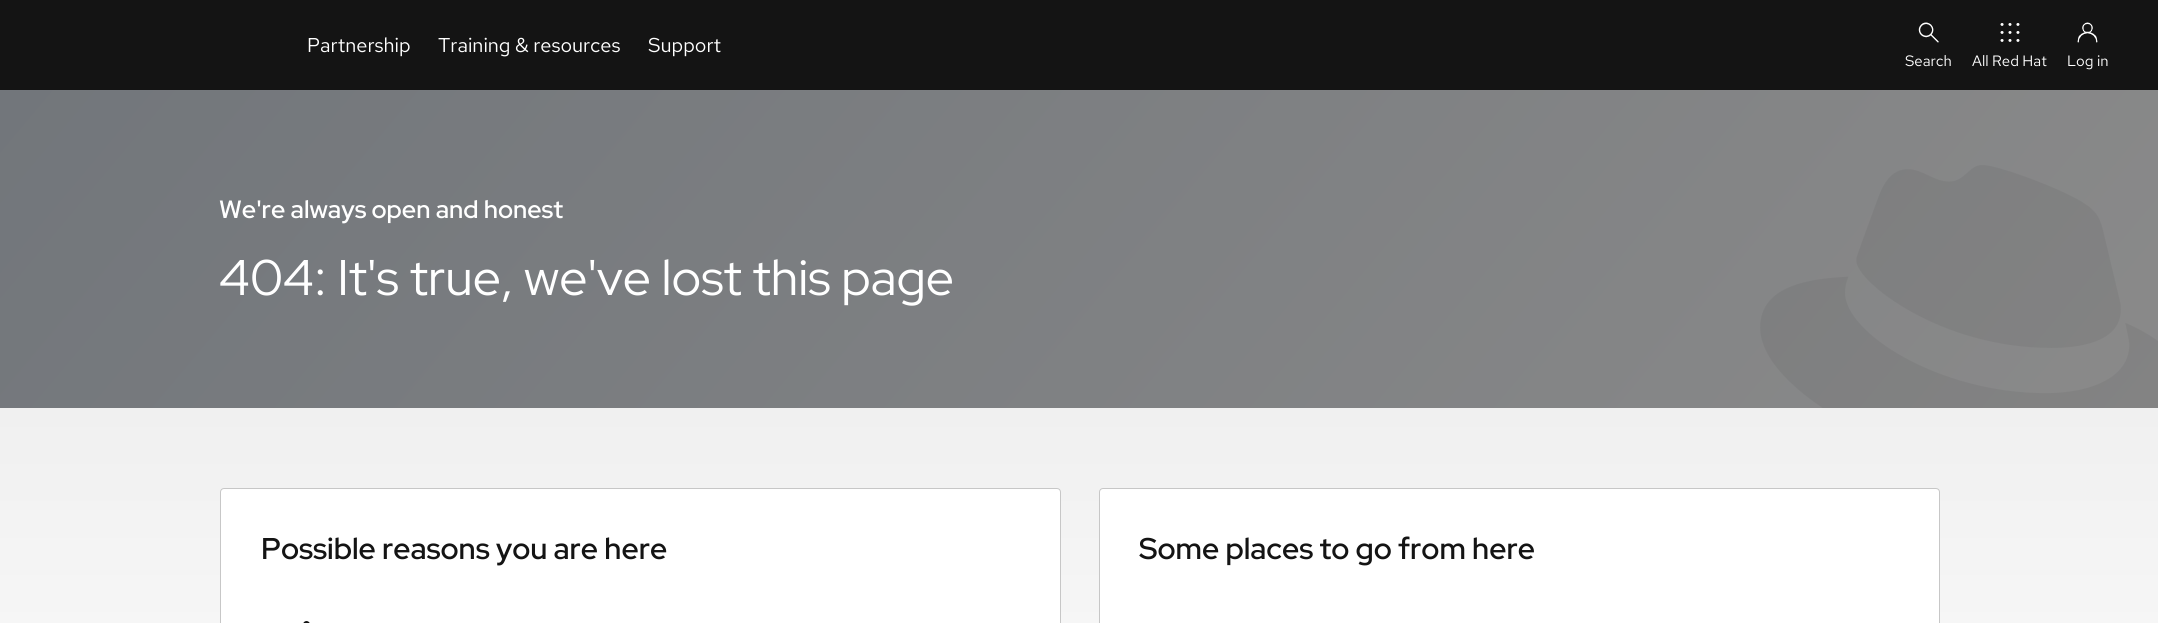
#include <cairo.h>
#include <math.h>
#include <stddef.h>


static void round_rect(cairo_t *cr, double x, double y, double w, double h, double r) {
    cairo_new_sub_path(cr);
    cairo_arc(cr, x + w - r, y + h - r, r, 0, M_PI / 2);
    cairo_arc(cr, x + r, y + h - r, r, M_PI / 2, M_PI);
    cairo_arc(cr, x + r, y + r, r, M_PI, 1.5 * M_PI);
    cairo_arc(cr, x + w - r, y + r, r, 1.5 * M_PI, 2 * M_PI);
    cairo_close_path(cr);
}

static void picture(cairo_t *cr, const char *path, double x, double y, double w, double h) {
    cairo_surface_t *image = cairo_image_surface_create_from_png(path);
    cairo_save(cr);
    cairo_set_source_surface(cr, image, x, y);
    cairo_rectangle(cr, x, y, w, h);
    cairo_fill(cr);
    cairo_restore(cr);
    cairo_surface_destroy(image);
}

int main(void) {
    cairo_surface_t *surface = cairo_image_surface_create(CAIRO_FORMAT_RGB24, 2158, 623);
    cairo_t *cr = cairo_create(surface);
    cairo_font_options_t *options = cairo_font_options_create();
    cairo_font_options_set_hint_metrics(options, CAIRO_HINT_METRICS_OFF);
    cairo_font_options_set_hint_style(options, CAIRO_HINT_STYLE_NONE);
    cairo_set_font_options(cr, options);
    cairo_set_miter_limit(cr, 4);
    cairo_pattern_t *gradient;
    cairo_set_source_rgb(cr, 1, 1, 1);
    cairo_paint(cr);
    cairo_set_source_rgb(cr, 0.082, 0.082, 0.082);
    cairo_rectangle(cr, 0, 0, 2158, 90);
    cairo_fill(cr);
    cairo_select_font_face(cr, "Red Hat Text", CAIRO_FONT_SLANT_NORMAL, CAIRO_FONT_WEIGHT_NORMAL);
    cairo_set_font_size(cr, 20);
    cairo_set_source_rgb(cr, 1, 1, 1);
    cairo_move_to(cr, 307, 52);
    cairo_show_text(cr, "Partnership");
    cairo_move_to(cr, 438, 52);
    cairo_show_text(cr, "Training & resources");
    cairo_move_to(cr, 648, 52);
    cairo_show_text(cr, "Support");
    picture(cr, "img1.png", 1918, 22, 21, 21);
    cairo_set_font_size(cr, 15);
    cairo_move_to(cr, 1905, 66);
    cairo_show_text(cr, "Search");
    picture(cr, "img2.png", 2000, 23, 20, 19);
    cairo_move_to(cr, 1972, 66);
    cairo_show_text(cr, "All Red Hat");
    picture(cr, "img3.png", 2077, 22, 21, 21);
    cairo_move_to(cr, 2067, 66);
    cairo_show_text(cr, "Log in");
    gradient = cairo_pattern_create_linear(368, -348, 1791, 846);
    cairo_pattern_add_color_stop_rgba(gradient, 0, 0.447, 0.463, 0.482, 1);
    cairo_pattern_add_color_stop_rgba(gradient, 1, 0.541, 0.541, 0.541, 1);
    cairo_set_source(cr, gradient);
    cairo_pattern_destroy(gradient);
    cairo_rectangle(cr, 0, 90, 2158, 318);
    cairo_fill(cr);
    picture(cr, "img4.png", 1760, 165, 398, 243);
    cairo_select_font_face(cr, "Red Hat Display", CAIRO_FONT_SLANT_NORMAL, CAIRO_FONT_WEIGHT_NORMAL);
    cairo_set_font_size(cr, 25);
    cairo_set_source_rgb(cr, 1, 1, 1);
    cairo_move_to(cr, 219, 218);
    cairo_show_text(cr, "We're always open and honest");
    cairo_select_font_face(cr, "Red Hat Display Light", CAIRO_FONT_SLANT_NORMAL, CAIRO_FONT_WEIGHT_NORMAL);
    cairo_set_font_size(cr, 50);
    cairo_move_to(cr, 219, 295);
    cairo_show_text(cr, "404: It's true, we've lost this page");
    gradient = cairo_pattern_create_linear(1079, 407, 1079, 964);
    cairo_pattern_add_color_stop_rgba(gradient, 0, 0.941, 0.941, 0.941, 1);
    cairo_pattern_add_color_stop_rgba(gradient, 1, 1, 1, 1, 1);
    cairo_set_source(cr, gradient);
    cairo_pattern_destroy(gradient);
    cairo_rectangle(cr, 0, 408, 2158, 215);
    cairo_fill(cr);
    cairo_set_source_rgb(cr, 1, 1, 1);
    round_rect(cr, 220.5, 488.5, 840, 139, 3.5);
    cairo_fill_preserve(cr);
    cairo_set_source_rgb(cr, 0.78, 0.78, 0.78);
    cairo_set_line_width(cr, 1);
    cairo_stroke(cr);
    cairo_select_font_face(cr, "Red Hat Display", CAIRO_FONT_SLANT_NORMAL, CAIRO_FONT_WEIGHT_NORMAL);
    cairo_set_font_size(cr, 30);
    cairo_set_source_rgb(cr, 0.082, 0.082, 0.082);
    cairo_move_to(cr, 261, 559);
    cairo_show_text(cr, "Possible reasons you are here");
    round_rect(cr, 303, 621, 7, 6, 3.5);
    cairo_fill(cr);
    cairo_set_source_rgb(cr, 1, 1, 1);
    round_rect(cr, 1099.5, 488.5, 840, 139, 3.5);
    cairo_fill_preserve(cr);
    cairo_set_source_rgb(cr, 0.78, 0.78, 0.78);
    cairo_stroke(cr);
    cairo_set_source_rgb(cr, 0.082, 0.082, 0.082);
    cairo_move_to(cr, 1139, 559);
    cairo_show_text(cr, "Some places to go from here");
    cairo_surface_write_to_png(surface, "page.png");
    cairo_font_options_destroy(options);
    cairo_destroy(cr);
    cairo_surface_destroy(surface);
    return 0;
}
